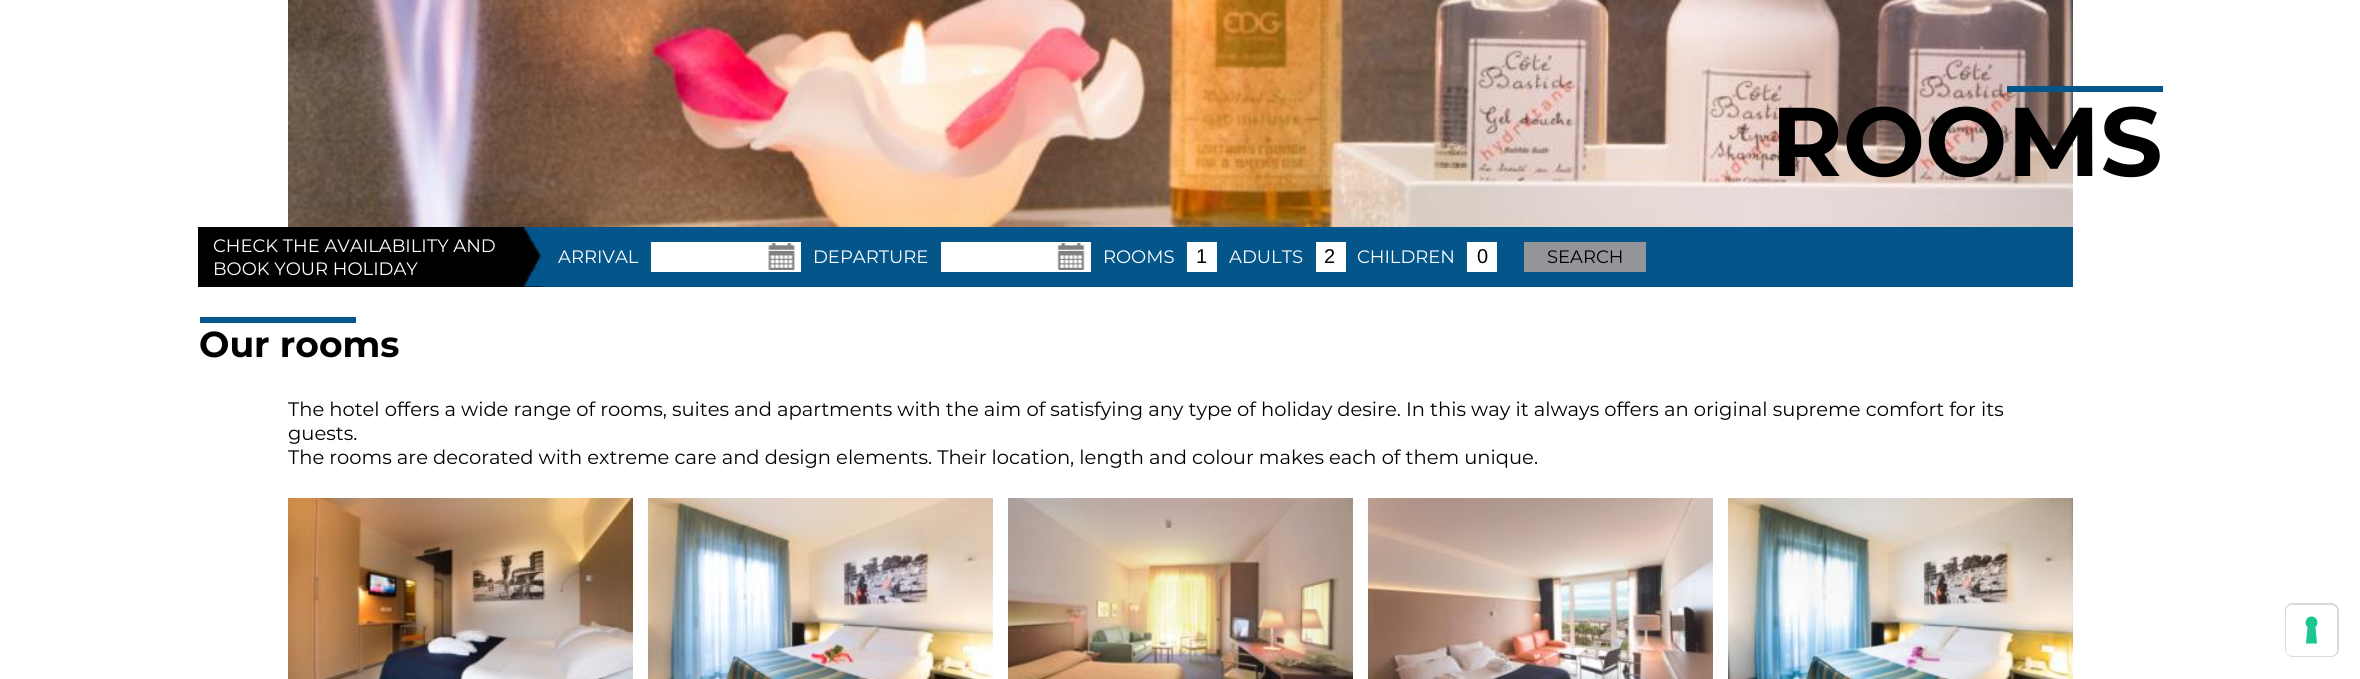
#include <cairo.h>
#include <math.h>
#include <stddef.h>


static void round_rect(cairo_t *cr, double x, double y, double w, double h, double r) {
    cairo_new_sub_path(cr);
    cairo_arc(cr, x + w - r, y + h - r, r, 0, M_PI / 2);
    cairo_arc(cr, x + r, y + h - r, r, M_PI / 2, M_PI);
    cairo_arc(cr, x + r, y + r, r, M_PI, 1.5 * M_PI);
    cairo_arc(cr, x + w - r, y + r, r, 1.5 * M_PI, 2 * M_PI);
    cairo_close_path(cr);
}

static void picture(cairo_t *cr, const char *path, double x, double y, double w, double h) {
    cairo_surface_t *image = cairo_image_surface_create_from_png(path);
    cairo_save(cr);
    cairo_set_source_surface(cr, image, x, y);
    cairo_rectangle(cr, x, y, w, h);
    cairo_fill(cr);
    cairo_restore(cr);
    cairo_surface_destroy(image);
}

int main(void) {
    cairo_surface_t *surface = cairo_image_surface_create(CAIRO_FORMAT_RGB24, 2360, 679);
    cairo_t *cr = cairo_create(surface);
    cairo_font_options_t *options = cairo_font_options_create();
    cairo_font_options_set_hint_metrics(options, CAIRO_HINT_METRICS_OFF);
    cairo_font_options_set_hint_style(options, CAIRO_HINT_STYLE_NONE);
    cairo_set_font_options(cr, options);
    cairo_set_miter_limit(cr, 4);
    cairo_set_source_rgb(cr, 1, 1, 1);
    cairo_paint(cr);
    picture(cr, "img1.png", 288, 0, 1785, 227);
    cairo_set_source_rgb(cr, 0.016, 0.337, 0.541);
    cairo_rectangle(cr, 2007, 86, 156, 6);
    cairo_fill(cr);
    cairo_select_font_face(cr, "Montserrat", CAIRO_FONT_SLANT_NORMAL, CAIRO_FONT_WEIGHT_BOLD);
    cairo_set_font_size(cr, 97.5);
    cairo_set_source_rgb(cr, 0, 0, 0);
    cairo_move_to(cr, 1771, 176);
    cairo_show_text(cr, "ROOMS");
    cairo_rectangle(cr, 198, 227, 345, 60);
    cairo_fill(cr);
    picture(cr, "img2.png", 511, 227, 32, 60);
    cairo_select_font_face(cr, "Montserrat", CAIRO_FONT_SLANT_NORMAL, CAIRO_FONT_WEIGHT_NORMAL);
    cairo_set_font_size(cr, 18);
    cairo_set_source_rgb(cr, 1, 1, 1);
    cairo_move_to(cr, 213, 252);
    cairo_show_text(cr, "CHECK THE AVAILABILITY AND");
    cairo_move_to(cr, 213, 275);
    cairo_show_text(cr, "BOOK YOUR HOLIDAY");
    cairo_set_source_rgb(cr, 0.016, 0.337, 0.541);
    cairo_rectangle(cr, 543, 227, 1530, 60);
    cairo_fill(cr);
    cairo_set_source_rgb(cr, 1, 1, 1);
    cairo_move_to(cr, 558, 263);
    cairo_show_text(cr, "ARRIVAL");
    cairo_rectangle(cr, 651, 242, 150, 30);
    cairo_fill(cr);
    picture(cr, "img3.png", 768, 243, 27, 27);
    cairo_move_to(cr, 813, 263);
    cairo_show_text(cr, "DEPARTURE");
    cairo_rectangle(cr, 941, 242, 150, 30);
    cairo_fill(cr);
    picture(cr, "img4.png", 1057, 243, 28, 27);
    cairo_move_to(cr, 1103, 263);
    cairo_show_text(cr, "ROOMS");
    cairo_rectangle(cr, 1187, 242, 30, 30);
    cairo_fill(cr);
    cairo_select_font_face(cr, "Liberation Sans", CAIRO_FONT_SLANT_NORMAL, CAIRO_FONT_WEIGHT_NORMAL);
    cairo_set_font_size(cr, 20);
    cairo_set_source_rgb(cr, 0, 0, 0);
    cairo_move_to(cr, 1196, 263);
    cairo_show_text(cr, "1");
    cairo_select_font_face(cr, "Montserrat", CAIRO_FONT_SLANT_NORMAL, CAIRO_FONT_WEIGHT_NORMAL);
    cairo_set_font_size(cr, 18);
    cairo_set_source_rgb(cr, 1, 1, 1);
    cairo_move_to(cr, 1229, 263);
    cairo_show_text(cr, "ADULTS");
    cairo_rectangle(cr, 1316, 242, 30, 30);
    cairo_fill(cr);
    cairo_select_font_face(cr, "Liberation Sans", CAIRO_FONT_SLANT_NORMAL, CAIRO_FONT_WEIGHT_NORMAL);
    cairo_set_font_size(cr, 20);
    cairo_set_source_rgb(cr, 0, 0, 0);
    cairo_move_to(cr, 1324, 263);
    cairo_show_text(cr, "2");
    cairo_select_font_face(cr, "Montserrat", CAIRO_FONT_SLANT_NORMAL, CAIRO_FONT_WEIGHT_NORMAL);
    cairo_set_font_size(cr, 18);
    cairo_set_source_rgb(cr, 1, 1, 1);
    cairo_move_to(cr, 1357, 263);
    cairo_show_text(cr, "CHILDREN");
    cairo_rectangle(cr, 1467, 242, 30, 30);
    cairo_fill(cr);
    cairo_select_font_face(cr, "Liberation Sans", CAIRO_FONT_SLANT_NORMAL, CAIRO_FONT_WEIGHT_NORMAL);
    cairo_set_font_size(cr, 20);
    cairo_set_source_rgb(cr, 0, 0, 0);
    cairo_move_to(cr, 1477, 263);
    cairo_show_text(cr, "0");
    cairo_set_source_rgb(cr, 0.576, 0.584, 0.596);
    cairo_rectangle(cr, 1524, 242, 122, 30);
    cairo_fill(cr);
    cairo_select_font_face(cr, "Montserrat", CAIRO_FONT_SLANT_NORMAL, CAIRO_FONT_WEIGHT_NORMAL);
    cairo_set_font_size(cr, 18);
    cairo_set_source_rgb(cr, 0, 0, 0);
    cairo_move_to(cr, 1547, 263);
    cairo_show_text(cr, "SEARCH");
    cairo_set_source_rgb(cr, 0.016, 0.337, 0.541);
    cairo_rectangle(cr, 200, 317, 156, 6);
    cairo_fill(cr);
    cairo_select_font_face(cr, "Montserrat", CAIRO_FONT_SLANT_NORMAL, CAIRO_FONT_WEIGHT_BOLD);
    cairo_set_font_size(cr, 36);
    cairo_set_source_rgb(cr, 0, 0, 0);
    cairo_move_to(cr, 199, 357);
    cairo_show_text(cr, "Our rooms");
    cairo_select_font_face(cr, "Montserrat", CAIRO_FONT_SLANT_NORMAL, CAIRO_FONT_WEIGHT_NORMAL);
    cairo_set_font_size(cr, 19.5);
    cairo_move_to(cr, 288, 416);
    cairo_show_text(cr, "The hotel offers a wide range of rooms, suites and apartments with the aim of satisfying any type of holiday desire. In this way it always offers an original supreme comfort for its");
    cairo_move_to(cr, 288, 440);
    cairo_show_text(cr, "guests.");
    cairo_move_to(cr, 288, 464);
    cairo_show_text(cr, "The rooms are decorated with extreme care and design elements. Their location, length and colour makes each of them unique.");
    picture(cr, "img5.png", 288, 498, 345, 181);
    picture(cr, "img6.png", 648, 498, 345, 181);
    picture(cr, "img7.png", 1008, 498, 345, 181);
    picture(cr, "img8.png", 1368, 498, 345, 181);
    picture(cr, "img9.png", 1728, 498, 345, 181);
    round_rect(cr, 2286, 604, 52, 52, 7);
    cairo_set_source_rgb(cr, 0.851, 0.851, 0.851);
    cairo_stroke(cr);
    cairo_set_source_rgb(cr, 1, 1, 1);
    round_rect(cr, 2286, 605, 51, 51, 6);
    cairo_fill(cr);
    cairo_set_source_rgb(cr, 0.11, 0.776, 0.569);
    cairo_set_fill_rule(cr, CAIRO_FILL_RULE_EVEN_ODD);
    cairo_new_path(cr);
    cairo_move_to(cr, 2311.5, 616.5);
    cairo_curve_to(cr, 2317, 616.5, 2319.5, 623.5, 2315.5, 627);
    cairo_line_to(cr, 2317, 643.5);
    cairo_line_to(cr, 2306, 643.5);
    cairo_line_to(cr, 2307.5, 627);
    cairo_curve_to(cr, 2303.5, 623.5, 2306, 616.5, 2311.5, 616.5);
    cairo_close_path(cr);
    cairo_fill(cr);
    cairo_surface_write_to_png(surface, "page.png");
    cairo_font_options_destroy(options);
    cairo_destroy(cr);
    cairo_surface_destroy(surface);
    return 0;
}
